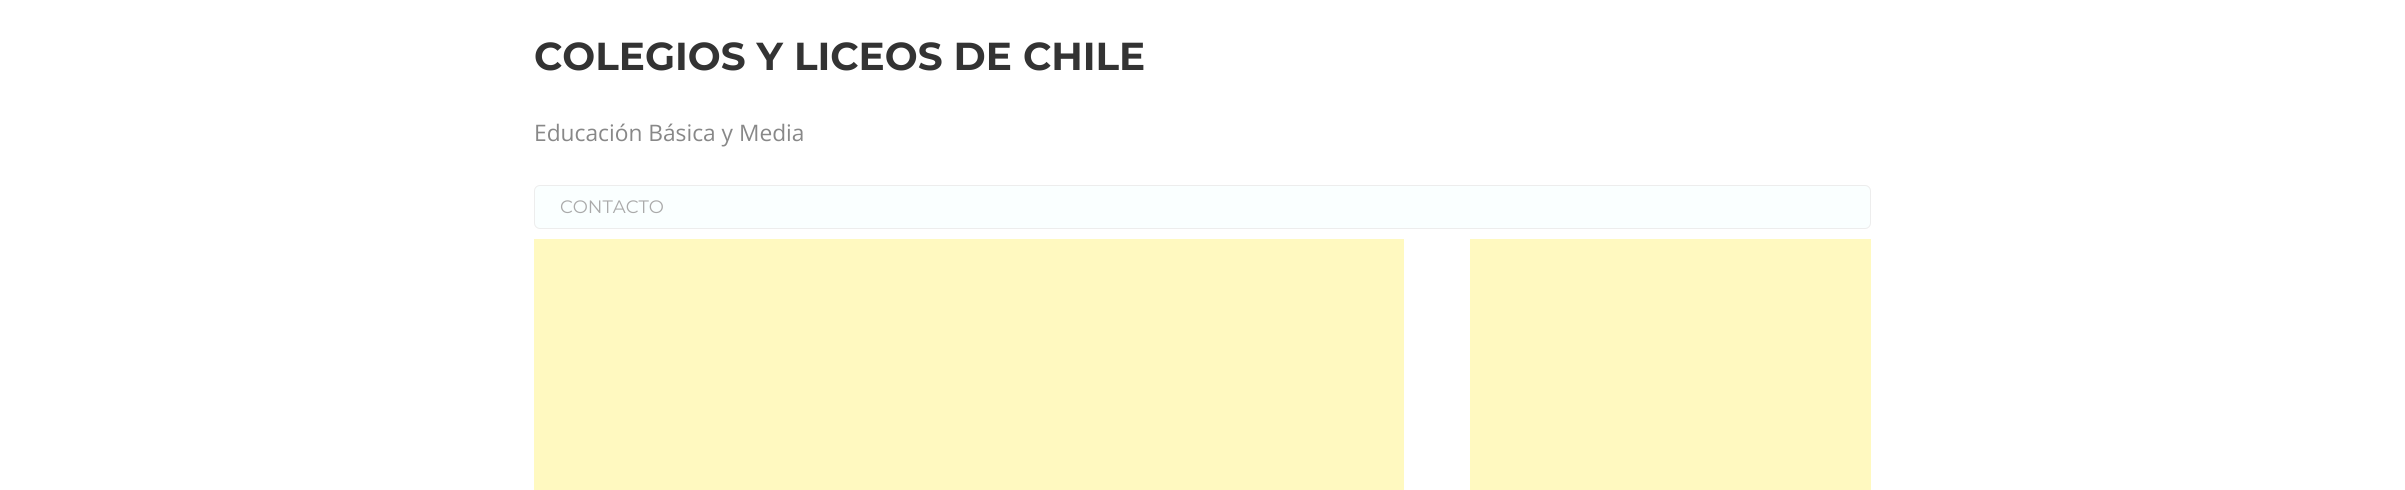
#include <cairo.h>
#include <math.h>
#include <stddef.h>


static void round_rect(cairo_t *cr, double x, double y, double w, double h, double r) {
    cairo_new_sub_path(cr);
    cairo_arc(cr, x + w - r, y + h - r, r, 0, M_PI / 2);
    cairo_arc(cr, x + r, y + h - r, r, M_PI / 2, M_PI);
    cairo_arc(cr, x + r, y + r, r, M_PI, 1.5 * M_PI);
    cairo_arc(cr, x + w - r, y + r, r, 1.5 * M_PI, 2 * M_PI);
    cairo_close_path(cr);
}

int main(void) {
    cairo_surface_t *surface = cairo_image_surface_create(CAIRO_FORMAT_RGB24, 2405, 490);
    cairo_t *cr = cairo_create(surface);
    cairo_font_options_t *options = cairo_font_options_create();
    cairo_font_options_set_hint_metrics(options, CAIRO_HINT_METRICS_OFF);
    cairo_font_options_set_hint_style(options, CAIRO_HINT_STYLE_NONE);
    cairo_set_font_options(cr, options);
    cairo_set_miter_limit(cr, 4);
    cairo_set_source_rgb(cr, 1, 1, 1);
    cairo_paint(cr);
    cairo_select_font_face(cr, "Montserrat", CAIRO_FONT_SLANT_NORMAL, CAIRO_FONT_WEIGHT_BOLD);
    cairo_set_font_size(cr, 39);
    cairo_set_source_rgb(cr, 0.2, 0.2, 0.2);
    cairo_move_to(cr, 534, 70);
    cairo_show_text(cr, "COLEGIOS Y LICEOS DE CHILE");
    cairo_select_font_face(cr, "Open Sans", CAIRO_FONT_SLANT_NORMAL, CAIRO_FONT_WEIGHT_NORMAL);
    cairo_set_font_size(cr, 22.75);
    cairo_set_source_rgb(cr, 0.533, 0.533, 0.533);
    cairo_move_to(cr, 534, 141);
    cairo_show_text(cr, "Educación Básica y Media");
    cairo_set_source_rgb(cr, 0.98, 1, 1);
    round_rect(cr, 534.5, 185.5, 1336, 43, 5.5);
    cairo_fill_preserve(cr);
    cairo_set_source_rgb(cr, 0.929, 0.929, 0.929);
    cairo_set_line_width(cr, 1);
    cairo_stroke(cr);
    cairo_select_font_face(cr, "Montserrat", CAIRO_FONT_SLANT_NORMAL, CAIRO_FONT_WEIGHT_NORMAL);
    cairo_set_font_size(cr, 18);
    cairo_set_source_rgb(cr, 0.667, 0.667, 0.667);
    cairo_move_to(cr, 560, 213);
    cairo_show_text(cr, "CONTACTO");
    cairo_set_source_rgb(cr, 1, 0.976, 0.753);
    cairo_rectangle(cr, 534, 239, 870, 251);
    cairo_fill(cr);
    cairo_rectangle(cr, 1470, 239, 401, 251);
    cairo_fill(cr);
    cairo_surface_write_to_png(surface, "page.png");
    cairo_font_options_destroy(options);
    cairo_destroy(cr);
    cairo_surface_destroy(surface);
    return 0;
}
